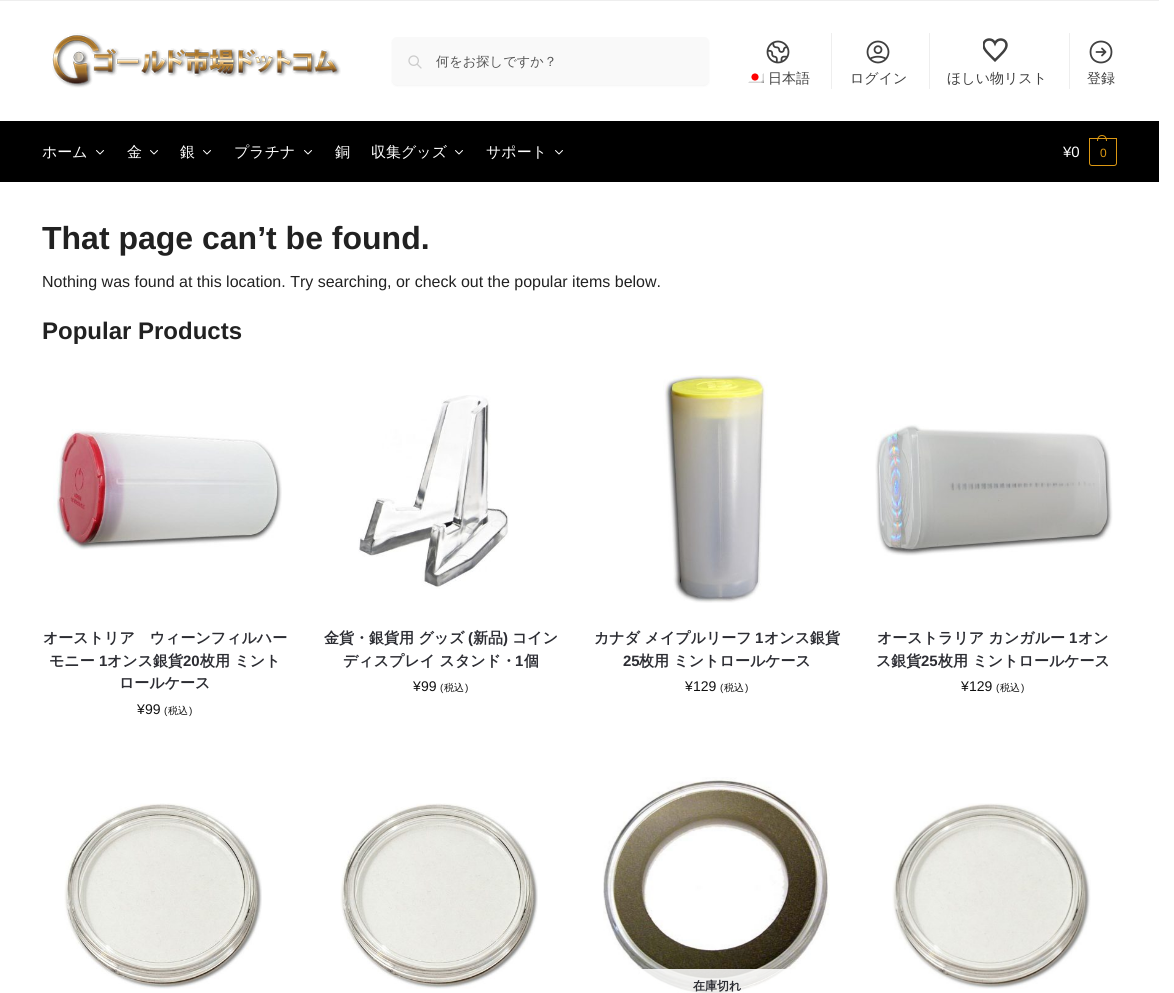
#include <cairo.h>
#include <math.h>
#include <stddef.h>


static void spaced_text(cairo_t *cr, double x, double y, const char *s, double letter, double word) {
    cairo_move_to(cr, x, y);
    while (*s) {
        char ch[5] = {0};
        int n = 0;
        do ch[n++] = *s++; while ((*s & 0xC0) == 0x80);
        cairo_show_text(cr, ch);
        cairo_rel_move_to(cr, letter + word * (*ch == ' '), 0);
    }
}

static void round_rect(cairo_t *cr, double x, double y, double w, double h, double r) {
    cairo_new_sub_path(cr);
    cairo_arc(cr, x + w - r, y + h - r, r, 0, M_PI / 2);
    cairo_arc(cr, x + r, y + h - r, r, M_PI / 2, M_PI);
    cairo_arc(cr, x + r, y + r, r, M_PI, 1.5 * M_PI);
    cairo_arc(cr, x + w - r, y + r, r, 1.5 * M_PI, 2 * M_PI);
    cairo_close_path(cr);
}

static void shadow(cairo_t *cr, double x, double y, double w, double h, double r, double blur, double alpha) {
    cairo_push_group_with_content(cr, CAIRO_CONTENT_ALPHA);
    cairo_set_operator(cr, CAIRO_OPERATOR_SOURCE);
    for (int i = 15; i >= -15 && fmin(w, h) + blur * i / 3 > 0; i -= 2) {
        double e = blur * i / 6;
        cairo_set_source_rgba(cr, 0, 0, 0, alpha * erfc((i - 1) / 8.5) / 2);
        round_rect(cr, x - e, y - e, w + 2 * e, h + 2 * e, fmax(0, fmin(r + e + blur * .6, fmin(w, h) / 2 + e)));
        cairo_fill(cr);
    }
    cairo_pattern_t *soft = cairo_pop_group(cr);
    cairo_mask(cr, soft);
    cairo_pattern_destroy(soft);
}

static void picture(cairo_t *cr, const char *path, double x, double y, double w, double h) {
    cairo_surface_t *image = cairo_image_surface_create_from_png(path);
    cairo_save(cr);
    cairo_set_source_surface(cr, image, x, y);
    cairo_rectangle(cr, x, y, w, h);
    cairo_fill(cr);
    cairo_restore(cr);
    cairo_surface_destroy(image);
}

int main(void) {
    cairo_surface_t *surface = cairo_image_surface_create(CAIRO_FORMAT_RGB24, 1174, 993);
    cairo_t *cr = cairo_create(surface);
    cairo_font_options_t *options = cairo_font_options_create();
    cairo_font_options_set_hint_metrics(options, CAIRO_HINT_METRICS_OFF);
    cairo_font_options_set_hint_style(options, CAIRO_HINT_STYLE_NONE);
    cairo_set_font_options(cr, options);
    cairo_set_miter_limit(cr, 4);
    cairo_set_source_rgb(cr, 1, 1, 1);
    cairo_paint(cr);
    cairo_set_source_rgb(cr, 0.933, 0.933, 0.933);
    cairo_rectangle(cr, 0, 0, 1159, 1);
    cairo_fill(cr);
    picture(cr, "img1.png", 52, 33, 289, 55);
    cairo_set_source_rgb(cr, 0, 0, 0);
    shadow(cr, 392, 38, 317, 48, 5, 1, 0.05);
    cairo_set_source_rgb(cr, 0.973, 0.973, 0.973);
    round_rect(cr, 392, 37, 317, 48, 5);
    cairo_fill(cr);
    picture(cr, "img2.png", 408, 55, 14, 14);
    cairo_select_font_face(cr, "WenQuanYi Zen Hei Medium", CAIRO_FONT_SLANT_NORMAL, CAIRO_FONT_WEIGHT_NORMAL);
    cairo_set_font_size(cr, 13.25);
    cairo_set_source_rgb(cr, 0.333, 0.333, 0.333);
    cairo_move_to(cr, 436, 66);
    cairo_show_text(cr, "何をお探しですか？");
    picture(cr, "img3.png", 766, 40, 24, 24);
    picture(cr, "img4.png", 748, 73, 16, 10);
    cairo_set_font_size(cr, 14);
    cairo_set_source_rgb(cr, 0.251, 0.251, 0.251);
    cairo_move_to(cr, 768, 83);
    cairo_show_text(cr, "日本語");
    cairo_set_source_rgb(cr, 0.933, 0.933, 0.933);
    cairo_rectangle(cr, 831, 33, 1, 56);
    cairo_fill(cr);
    picture(cr, "img5.png", 866, 40, 24, 24);
    cairo_set_source_rgb(cr, 0.251, 0.251, 0.251);
    cairo_move_to(cr, 850, 83);
    cairo_show_text(cr, "ログイン");
    cairo_set_source_rgb(cr, 0.933, 0.933, 0.933);
    cairo_rectangle(cr, 929, 33, 1, 56);
    cairo_fill(cr);
    picture(cr, "img6.png", 983, 38, 25, 24);
    cairo_set_source_rgb(cr, 0.251, 0.251, 0.251);
    cairo_move_to(cr, 947, 83);
    cairo_show_text(cr, "ほしい物リスト");
    cairo_set_source_rgb(cr, 0.933, 0.933, 0.933);
    cairo_rectangle(cr, 1069, 33, 1, 56);
    cairo_fill(cr);
    cairo_new_path(cr);
    cairo_move_to(cr, 1102, 48.5);
    cairo_line_to(cr, 1105.5, 52);
    cairo_move_to(cr, 1105.5, 52);
    cairo_line_to(cr, 1102, 55.5);
    cairo_move_to(cr, 1105.5, 52);
    cairo_line_to(cr, 1096.5, 52);
    cairo_move_to(cr, 1111.5, 52);
    cairo_curve_to(cr, 1111.5, 66, 1090.5, 66, 1090.5, 52);
    cairo_curve_to(cr, 1090.5, 38, 1111.5, 38, 1111.5, 52);
    cairo_close_path(cr);
    cairo_set_source_rgb(cr, 0.251, 0.251, 0.251);
    cairo_set_line_width(cr, 1.8);
    cairo_set_line_cap(cr, CAIRO_LINE_CAP_ROUND);
    cairo_set_line_join(cr, CAIRO_LINE_JOIN_ROUND);
    cairo_stroke(cr);
    cairo_move_to(cr, 1087, 83);
    cairo_show_text(cr, "登録");
    cairo_set_source_rgb(cr, 0, 0, 0);
    cairo_rectangle(cr, 0, 121, 1159, 61);
    cairo_fill(cr);
    cairo_set_font_size(cr, 15);
    cairo_set_source_rgb(cr, 1, 1, 1);
    cairo_move_to(cr, 42, 157);
    cairo_show_text(cr, "ホーム");
    cairo_new_path(cr);
    cairo_move_to(cr, 103.5, 150.5);
    cairo_line_to(cr, 100, 154);
    cairo_line_to(cr, 96.5, 150.5);
    cairo_set_line_width(cr, 1);
    cairo_stroke(cr);
    cairo_move_to(cr, 127, 157);
    cairo_show_text(cr, "金");
    cairo_new_path(cr);
    cairo_move_to(cr, 157.5, 150.5);
    cairo_line_to(cr, 154, 154);
    cairo_line_to(cr, 150.5, 150.5);
    cairo_stroke(cr);
    cairo_move_to(cr, 180, 157);
    cairo_show_text(cr, "銀");
    cairo_new_path(cr);
    cairo_move_to(cr, 210.5, 150.5);
    cairo_line_to(cr, 207, 154);
    cairo_line_to(cr, 203.5, 150.5);
    cairo_stroke(cr);
    cairo_move_to(cr, 234, 157);
    cairo_show_text(cr, "プラチナ");
    cairo_new_path(cr);
    cairo_move_to(cr, 311.5, 150.5);
    cairo_line_to(cr, 308, 154);
    cairo_line_to(cr, 304.5, 150.5);
    cairo_stroke(cr);
    cairo_move_to(cr, 335, 157);
    cairo_show_text(cr, "銅");
    cairo_move_to(cr, 371, 157);
    cairo_show_text(cr, "収集グッズ");
    cairo_new_path(cr);
    cairo_move_to(cr, 462.5, 150.5);
    cairo_line_to(cr, 459, 154);
    cairo_line_to(cr, 455.5, 150.5);
    cairo_stroke(cr);
    cairo_move_to(cr, 486, 157);
    cairo_show_text(cr, "サポート");
    cairo_new_path(cr);
    cairo_move_to(cr, 562.5, 150.5);
    cairo_line_to(cr, 559, 154);
    cairo_line_to(cr, 555.5, 150.5);
    cairo_stroke(cr);
    cairo_select_font_face(cr, "Liberation Sans", CAIRO_FONT_SLANT_NORMAL, CAIRO_FONT_WEIGHT_NORMAL);
    cairo_move_to(cr, 1063, 157);
    cairo_show_text(cr, "¥0");
    cairo_new_path(cr);
    cairo_move_to(cr, 1089.5, 138.5);
    cairo_line_to(cr, 1116.5, 138.5);
    cairo_line_to(cr, 1116.5, 163);
    cairo_curve_to(cr, 1116.5, 164.5, 1115.5, 165.5, 1114, 165.5);
    cairo_line_to(cr, 1092, 165.5);
    cairo_curve_to(cr, 1090.5, 165.5, 1089.5, 164.5, 1089.5, 163);
    cairo_close_path(cr);
    cairo_set_source_rgb(cr, 0.863, 0.596, 0.078);
    cairo_set_line_cap(cr, CAIRO_LINE_CAP_BUTT);
    cairo_set_line_join(cr, CAIRO_LINE_JOIN_MITER);
    cairo_stroke(cr);
    cairo_set_fill_rule(cr, CAIRO_FILL_RULE_EVEN_ODD);
    cairo_new_path(cr);
    cairo_move_to(cr, 1102, 135);
    cairo_curve_to(cr, 1105.5, 135, 1107, 138, 1107, 141);
    cairo_line_to(cr, 1097, 141);
    cairo_curve_to(cr, 1097, 138, 1098.5, 135, 1102, 135);
    cairo_close_path(cr);
    cairo_move_to(cr, 1102, 136);
    cairo_curve_to(cr, 1105, 136, 1106, 138.5, 1106, 141);
    cairo_line_to(cr, 1098, 141);
    cairo_curve_to(cr, 1098, 138.5, 1099, 136, 1102, 136);
    cairo_close_path(cr);
    cairo_fill(cr);
    cairo_set_font_size(cr, 12);
    spaced_text(cr, 1100, 157, "0", -1, 0);
    cairo_select_font_face(cr, "Liberation Sans", CAIRO_FONT_SLANT_NORMAL, CAIRO_FONT_WEIGHT_BOLD);
    cairo_set_font_size(cr, 32);
    cairo_set_source_rgb(cr, 0.129, 0.129, 0.129);
    cairo_move_to(cr, 42, 249);
    cairo_show_text(cr, "That page can’t be found.");
    cairo_select_font_face(cr, "Liberation Sans", CAIRO_FONT_SLANT_NORMAL, CAIRO_FONT_WEIGHT_NORMAL);
    cairo_set_font_size(cr, 16);
    cairo_move_to(cr, 42, 287);
    cairo_show_text(cr, "Nothing was found at this location. Try searching, or check out the popular items below.");
    cairo_select_font_face(cr, "Liberation Sans", CAIRO_FONT_SLANT_NORMAL, CAIRO_FONT_WEIGHT_BOLD);
    cairo_set_font_size(cr, 24);
    cairo_move_to(cr, 42, 339);
    cairo_show_text(cr, "Popular Products");
    picture(cr, "img7.png", 53, 429, 229, 121);
    cairo_select_font_face(cr, "WenQuanYi Zen Hei", CAIRO_FONT_SLANT_NORMAL, CAIRO_FONT_WEIGHT_BOLD);
    cairo_set_font_size(cr, 15);
    cairo_set_source_rgb(cr, 0.173, 0.176, 0.2);
    cairo_move_to(cr, 43, 643);
    cairo_show_text(cr, "オーストリア　ウィーンフィルハー");
    cairo_move_to(cr, 49, 666);
    cairo_show_text(cr, "モニー");
    cairo_select_font_face(cr, "Liberation Sans", CAIRO_FONT_SLANT_NORMAL, CAIRO_FONT_WEIGHT_BOLD);
    cairo_move_to(cr, 99, 666);
    cairo_show_text(cr, "1");
    cairo_select_font_face(cr, "WenQuanYi Zen Hei", CAIRO_FONT_SLANT_NORMAL, CAIRO_FONT_WEIGHT_BOLD);
    cairo_move_to(cr, 107, 666);
    cairo_show_text(cr, "オンス銀貨");
    cairo_select_font_face(cr, "Liberation Sans", CAIRO_FONT_SLANT_NORMAL, CAIRO_FONT_WEIGHT_BOLD);
    cairo_move_to(cr, 183, 666);
    cairo_show_text(cr, "20");
    cairo_select_font_face(cr, "WenQuanYi Zen Hei", CAIRO_FONT_SLANT_NORMAL, CAIRO_FONT_WEIGHT_BOLD);
    cairo_move_to(cr, 200, 666);
    cairo_show_text(cr, "枚用 ミント");
    cairo_move_to(cr, 119, 688);
    cairo_show_text(cr, "ロールケース");
    cairo_select_font_face(cr, "Liberation Sans", CAIRO_FONT_SLANT_NORMAL, CAIRO_FONT_WEIGHT_NORMAL);
    cairo_set_font_size(cr, 14);
    cairo_set_source_rgb(cr, 0.067, 0.067, 0.067);
    cairo_move_to(cr, 137, 714);
    cairo_show_text(cr, "¥");
    cairo_move_to(cr, 145, 714);
    cairo_show_text(cr, "99");
    cairo_set_font_size(cr, 10);
    cairo_move_to(cr, 164, 714);
    cairo_show_text(cr, "(");
    cairo_select_font_face(cr, "WenQuanYi Zen Hei Medium", CAIRO_FONT_SLANT_NORMAL, CAIRO_FONT_WEIGHT_NORMAL);
    cairo_move_to(cr, 168, 714);
    cairo_show_text(cr, "税込");
    cairo_select_font_face(cr, "Liberation Sans", CAIRO_FONT_SLANT_NORMAL, CAIRO_FONT_WEIGHT_NORMAL);
    cairo_move_to(cr, 189, 714);
    cairo_show_text(cr, ")");
    picture(cr, "img8.png", 358, 395, 151, 194);
    cairo_select_font_face(cr, "WenQuanYi Zen Hei", CAIRO_FONT_SLANT_NORMAL, CAIRO_FONT_WEIGHT_BOLD);
    cairo_set_font_size(cr, 15);
    cairo_set_source_rgb(cr, 0.173, 0.176, 0.2);
    cairo_move_to(cr, 324, 643);
    cairo_show_text(cr, "金貨・銀貨用 グッズ");
    cairo_select_font_face(cr, "Liberation Sans", CAIRO_FONT_SLANT_NORMAL, CAIRO_FONT_WEIGHT_BOLD);
    cairo_move_to(cr, 468, 643);
    cairo_show_text(cr, "(");
    cairo_select_font_face(cr, "WenQuanYi Zen Hei", CAIRO_FONT_SLANT_NORMAL, CAIRO_FONT_WEIGHT_BOLD);
    cairo_move_to(cr, 473, 643);
    cairo_show_text(cr, "新品");
    cairo_select_font_face(cr, "Liberation Sans", CAIRO_FONT_SLANT_NORMAL, CAIRO_FONT_WEIGHT_BOLD);
    cairo_move_to(cr, 503, 643);
    cairo_show_text(cr, ")");
    cairo_select_font_face(cr, "WenQuanYi Zen Hei", CAIRO_FONT_SLANT_NORMAL, CAIRO_FONT_WEIGHT_BOLD);
    cairo_move_to(cr, 512, 643);
    cairo_show_text(cr, "コイン");
    cairo_move_to(cr, 343, 666);
    cairo_show_text(cr, "ディスプレイ スタンド・");
    cairo_select_font_face(cr, "Liberation Sans", CAIRO_FONT_SLANT_NORMAL, CAIRO_FONT_WEIGHT_BOLD);
    cairo_move_to(cr, 515, 666);
    cairo_show_text(cr, "1");
    cairo_select_font_face(cr, "WenQuanYi Zen Hei", CAIRO_FONT_SLANT_NORMAL, CAIRO_FONT_WEIGHT_BOLD);
    cairo_move_to(cr, 524, 666);
    cairo_show_text(cr, "個");
    cairo_select_font_face(cr, "Liberation Sans", CAIRO_FONT_SLANT_NORMAL, CAIRO_FONT_WEIGHT_NORMAL);
    cairo_set_font_size(cr, 14);
    cairo_set_source_rgb(cr, 0.067, 0.067, 0.067);
    cairo_move_to(cr, 413, 691);
    cairo_show_text(cr, "¥");
    cairo_move_to(cr, 421, 691);
    cairo_show_text(cr, "99");
    cairo_set_font_size(cr, 10);
    cairo_move_to(cr, 440, 691);
    cairo_show_text(cr, "(");
    cairo_select_font_face(cr, "WenQuanYi Zen Hei Medium", CAIRO_FONT_SLANT_NORMAL, CAIRO_FONT_WEIGHT_NORMAL);
    cairo_move_to(cr, 444, 691);
    cairo_show_text(cr, "税込");
    cairo_select_font_face(cr, "Liberation Sans", CAIRO_FONT_SLANT_NORMAL, CAIRO_FONT_WEIGHT_NORMAL);
    cairo_move_to(cr, 465, 691);
    cairo_show_text(cr, ")");
    picture(cr, "img9.png", 663, 375, 105, 228);
    cairo_select_font_face(cr, "WenQuanYi Zen Hei", CAIRO_FONT_SLANT_NORMAL, CAIRO_FONT_WEIGHT_BOLD);
    cairo_set_font_size(cr, 15);
    cairo_set_source_rgb(cr, 0.173, 0.176, 0.2);
    cairo_move_to(cr, 594, 643);
    cairo_show_text(cr, "カナダ メイプルリーフ");
    cairo_select_font_face(cr, "Liberation Sans", CAIRO_FONT_SLANT_NORMAL, CAIRO_FONT_WEIGHT_BOLD);
    cairo_move_to(cr, 755, 643);
    cairo_show_text(cr, "1");
    cairo_select_font_face(cr, "WenQuanYi Zen Hei", CAIRO_FONT_SLANT_NORMAL, CAIRO_FONT_WEIGHT_BOLD);
    cairo_move_to(cr, 764, 643);
    cairo_show_text(cr, "オンス銀貨");
    cairo_select_font_face(cr, "Liberation Sans", CAIRO_FONT_SLANT_NORMAL, CAIRO_FONT_WEIGHT_BOLD);
    cairo_move_to(cr, 623, 666);
    cairo_show_text(cr, "25");
    cairo_select_font_face(cr, "WenQuanYi Zen Hei", CAIRO_FONT_SLANT_NORMAL, CAIRO_FONT_WEIGHT_BOLD);
    cairo_move_to(cr, 639, 666);
    cairo_show_text(cr, "枚用 ミントロールケース");
    cairo_select_font_face(cr, "Liberation Sans", CAIRO_FONT_SLANT_NORMAL, CAIRO_FONT_WEIGHT_NORMAL);
    cairo_set_font_size(cr, 14);
    cairo_set_source_rgb(cr, 0.067, 0.067, 0.067);
    cairo_move_to(cr, 685, 691);
    cairo_show_text(cr, "¥");
    cairo_move_to(cr, 693, 691);
    cairo_show_text(cr, "129");
    cairo_set_font_size(cr, 10);
    cairo_move_to(cr, 720, 691);
    cairo_show_text(cr, "(");
    cairo_select_font_face(cr, "WenQuanYi Zen Hei Medium", CAIRO_FONT_SLANT_NORMAL, CAIRO_FONT_WEIGHT_NORMAL);
    cairo_move_to(cr, 724, 691);
    cairo_show_text(cr, "税込");
    cairo_select_font_face(cr, "Liberation Sans", CAIRO_FONT_SLANT_NORMAL, CAIRO_FONT_WEIGHT_NORMAL);
    cairo_move_to(cr, 745, 691);
    cairo_show_text(cr, ")");
    picture(cr, "img10.png", 875, 424, 238, 132);
    cairo_select_font_face(cr, "WenQuanYi Zen Hei", CAIRO_FONT_SLANT_NORMAL, CAIRO_FONT_WEIGHT_BOLD);
    cairo_set_font_size(cr, 15);
    cairo_set_source_rgb(cr, 0.173, 0.176, 0.2);
    cairo_move_to(cr, 877, 643);
    cairo_show_text(cr, "オーストラリア カンガルー");
    cairo_select_font_face(cr, "Liberation Sans", CAIRO_FONT_SLANT_NORMAL, CAIRO_FONT_WEIGHT_BOLD);
    cairo_move_to(cr, 1069, 643);
    cairo_show_text(cr, "1");
    cairo_select_font_face(cr, "WenQuanYi Zen Hei", CAIRO_FONT_SLANT_NORMAL, CAIRO_FONT_WEIGHT_BOLD);
    cairo_move_to(cr, 1078, 643);
    cairo_show_text(cr, "オン");
    cairo_move_to(cr, 876, 666);
    cairo_show_text(cr, "ス銀貨");
    cairo_select_font_face(cr, "Liberation Sans", CAIRO_FONT_SLANT_NORMAL, CAIRO_FONT_WEIGHT_BOLD);
    cairo_move_to(cr, 921, 666);
    cairo_show_text(cr, "25");
    cairo_select_font_face(cr, "WenQuanYi Zen Hei", CAIRO_FONT_SLANT_NORMAL, CAIRO_FONT_WEIGHT_BOLD);
    cairo_move_to(cr, 938, 666);
    cairo_show_text(cr, "枚用 ミントロールケース");
    cairo_select_font_face(cr, "Liberation Sans", CAIRO_FONT_SLANT_NORMAL, CAIRO_FONT_WEIGHT_NORMAL);
    cairo_set_font_size(cr, 14);
    cairo_set_source_rgb(cr, 0.067, 0.067, 0.067);
    cairo_move_to(cr, 961, 691);
    cairo_show_text(cr, "¥");
    cairo_move_to(cr, 969, 691);
    cairo_show_text(cr, "129");
    cairo_set_font_size(cr, 10);
    cairo_move_to(cr, 996, 691);
    cairo_show_text(cr, "(");
    cairo_select_font_face(cr, "WenQuanYi Zen Hei Medium", CAIRO_FONT_SLANT_NORMAL, CAIRO_FONT_WEIGHT_NORMAL);
    cairo_move_to(cr, 1000, 691);
    cairo_show_text(cr, "税込");
    cairo_select_font_face(cr, "Liberation Sans", CAIRO_FONT_SLANT_NORMAL, CAIRO_FONT_WEIGHT_NORMAL);
    cairo_move_to(cr, 1021, 691);
    cairo_show_text(cr, ")");
    picture(cr, "img11.png", 64, 803, 198, 186);
    picture(cr, "img12.png", 340, 803, 198, 186);
    picture(cr, "img13.png", 603, 777, 227, 216);
    cairo_set_source_rgba(cr, 1, 1, 1, 0.85);
    cairo_rectangle(cr, 640, 969, 150, 24);
    cairo_fill(cr);
    cairo_select_font_face(cr, "WenQuanYi Zen Hei", CAIRO_FONT_SLANT_NORMAL, CAIRO_FONT_WEIGHT_BOLD);
    cairo_set_font_size(cr, 12);
    cairo_set_source_rgb(cr, 0.173, 0.176, 0.2);
    cairo_move_to(cr, 693, 990);
    cairo_show_text(cr, "在庫切れ");
    picture(cr, "img14.png", 892, 803, 199, 186);
    cairo_surface_write_to_png(surface, "page.png");
    cairo_font_options_destroy(options);
    cairo_destroy(cr);
    cairo_surface_destroy(surface);
    return 0;
}
